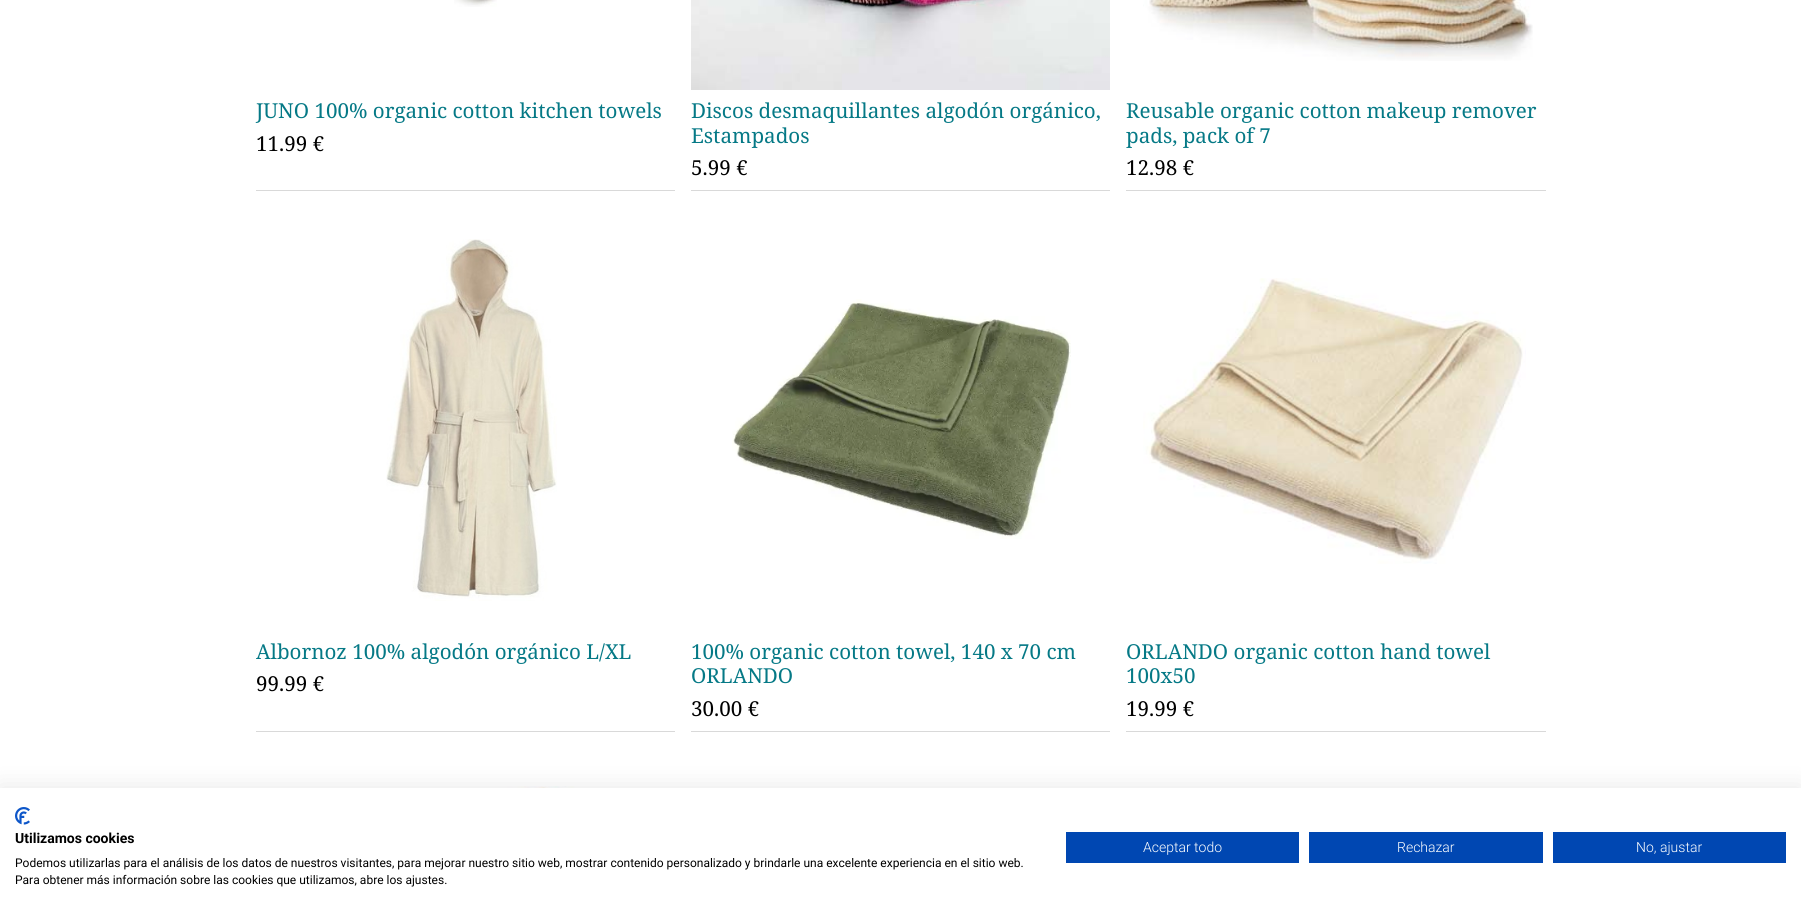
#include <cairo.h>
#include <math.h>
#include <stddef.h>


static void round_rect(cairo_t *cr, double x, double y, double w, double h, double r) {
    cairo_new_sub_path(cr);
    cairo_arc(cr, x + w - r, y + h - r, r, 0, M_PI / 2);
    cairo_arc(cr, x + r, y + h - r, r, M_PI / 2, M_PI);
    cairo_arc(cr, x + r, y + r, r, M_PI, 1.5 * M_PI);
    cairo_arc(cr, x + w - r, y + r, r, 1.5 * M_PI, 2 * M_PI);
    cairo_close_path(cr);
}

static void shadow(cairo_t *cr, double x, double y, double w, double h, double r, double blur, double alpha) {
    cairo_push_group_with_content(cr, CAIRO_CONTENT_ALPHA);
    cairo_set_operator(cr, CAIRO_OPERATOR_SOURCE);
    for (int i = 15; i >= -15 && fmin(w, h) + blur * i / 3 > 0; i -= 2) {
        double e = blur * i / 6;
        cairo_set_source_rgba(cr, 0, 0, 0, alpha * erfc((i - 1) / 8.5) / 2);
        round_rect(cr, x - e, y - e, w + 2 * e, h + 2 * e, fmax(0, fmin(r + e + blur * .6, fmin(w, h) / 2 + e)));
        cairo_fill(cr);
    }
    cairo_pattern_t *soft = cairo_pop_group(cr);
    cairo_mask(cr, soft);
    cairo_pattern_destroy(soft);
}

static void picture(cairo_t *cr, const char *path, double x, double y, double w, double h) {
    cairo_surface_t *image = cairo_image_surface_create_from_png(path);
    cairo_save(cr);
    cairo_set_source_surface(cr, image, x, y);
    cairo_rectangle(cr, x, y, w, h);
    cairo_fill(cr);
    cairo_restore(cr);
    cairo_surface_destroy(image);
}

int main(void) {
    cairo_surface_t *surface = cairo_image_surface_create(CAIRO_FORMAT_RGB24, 1801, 916);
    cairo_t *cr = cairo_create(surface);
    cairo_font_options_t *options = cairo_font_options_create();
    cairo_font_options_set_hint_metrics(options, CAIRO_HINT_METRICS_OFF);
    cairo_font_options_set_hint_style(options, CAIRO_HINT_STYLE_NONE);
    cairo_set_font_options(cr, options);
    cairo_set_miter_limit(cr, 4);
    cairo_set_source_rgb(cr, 1, 1, 1);
    cairo_paint(cr);
    cairo_set_source_rgb(cr, 0.851, 0.851, 0.851);
    cairo_rectangle(cr, 256, 190, 419, 1);
    cairo_fill(cr);
    picture(cr, "img1.png", 454, 0, 43, 7);
    cairo_select_font_face(cr, "Noto Serif", CAIRO_FONT_SLANT_NORMAL, CAIRO_FONT_WEIGHT_NORMAL);
    cairo_set_font_size(cr, 20.6);
    cairo_set_source_rgb(cr, 0.02, 0.475, 0.525);
    cairo_move_to(cr, 256, 118);
    cairo_show_text(cr, "JUNO 100% organic cotton kitchen towels");
    cairo_set_source_rgb(cr, 0, 0, 0);
    cairo_move_to(cr, 256, 151);
    cairo_show_text(cr, "11.99 €");
    cairo_set_source_rgb(cr, 0.851, 0.851, 0.851);
    cairo_rectangle(cr, 691, 190, 419, 1);
    cairo_fill(cr);
    picture(cr, "img2.png", 691, 0, 419, 90);
    cairo_set_source_rgb(cr, 0.02, 0.475, 0.525);
    cairo_move_to(cr, 691, 118);
    cairo_show_text(cr, "Discos desmaquillantes algodón orgánico,");
    cairo_move_to(cr, 691, 143);
    cairo_show_text(cr, "Estampados");
    cairo_set_source_rgb(cr, 0, 0, 0);
    cairo_move_to(cr, 691, 175);
    cairo_show_text(cr, "5.99 €");
    cairo_set_source_rgb(cr, 0.851, 0.851, 0.851);
    cairo_rectangle(cr, 1126, 190, 420, 1);
    cairo_fill(cr);
    picture(cr, "img3.png", 1143, 0, 390, 61);
    cairo_set_source_rgb(cr, 0.02, 0.475, 0.525);
    cairo_move_to(cr, 1126, 118);
    cairo_show_text(cr, "Reusable organic cotton makeup remover");
    cairo_move_to(cr, 1126, 143);
    cairo_show_text(cr, "pads, pack of 7");
    cairo_set_source_rgb(cr, 0, 0, 0);
    cairo_move_to(cr, 1126, 175);
    cairo_show_text(cr, "12.98 €");
    cairo_set_source_rgb(cr, 0.851, 0.851, 0.851);
    cairo_rectangle(cr, 256, 731, 419, 1);
    cairo_fill(cr);
    picture(cr, "img4.png", 386, 239, 171, 362);
    cairo_set_source_rgb(cr, 0.02, 0.475, 0.525);
    cairo_move_to(cr, 256, 659);
    cairo_show_text(cr, "Albornoz 100% algodón orgánico L/XL");
    cairo_set_source_rgb(cr, 0, 0, 0);
    cairo_move_to(cr, 256, 691);
    cairo_show_text(cr, "99.99 €");
    cairo_set_source_rgb(cr, 0.851, 0.851, 0.851);
    cairo_rectangle(cr, 691, 731, 419, 1);
    cairo_fill(cr);
    picture(cr, "img5.png", 732, 299, 339, 240);
    cairo_set_source_rgb(cr, 0.02, 0.475, 0.525);
    cairo_move_to(cr, 691, 659);
    cairo_show_text(cr, "100% organic cotton towel, 140 x 70 cm");
    cairo_move_to(cr, 691, 683);
    cairo_show_text(cr, "ORLANDO");
    cairo_set_source_rgb(cr, 0, 0, 0);
    cairo_move_to(cr, 691, 716);
    cairo_show_text(cr, "30.00 €");
    cairo_set_source_rgb(cr, 0.851, 0.851, 0.851);
    cairo_rectangle(cr, 1126, 731, 420, 1);
    cairo_fill(cr);
    picture(cr, "img6.png", 1143, 278, 383, 286);
    cairo_set_source_rgb(cr, 0.02, 0.475, 0.525);
    cairo_move_to(cr, 1126, 659);
    cairo_show_text(cr, "ORLANDO organic cotton hand towel");
    cairo_move_to(cr, 1126, 683);
    cairo_show_text(cr, "100x50");
    cairo_set_source_rgb(cr, 0, 0, 0);
    cairo_move_to(cr, 1126, 716);
    cairo_show_text(cr, "19.99 €");
    picture(cr, "img7.png", 378, 786, 255, 2);
    cairo_set_source_rgb(cr, 0, 0, 0);
    shadow(cr, 0, 788, 1801, 128, 0, 12, 0.1);
    cairo_set_source_rgb(cr, 1, 1, 1);
    cairo_rectangle(cr, 0, 788, 1801, 128);
    cairo_fill(cr);
    picture(cr, "img8.png", 15, 807, 15, 18);
    cairo_select_font_face(cr, "Roboto", CAIRO_FONT_SLANT_NORMAL, CAIRO_FONT_WEIGHT_BOLD);
    cairo_set_font_size(cr, 14);
    cairo_set_source_rgb(cr, 0, 0, 0);
    cairo_move_to(cr, 15, 843);
    cairo_show_text(cr, "Utilizamos cookies");
    cairo_select_font_face(cr, "Roboto", CAIRO_FONT_SLANT_NORMAL, CAIRO_FONT_WEIGHT_NORMAL);
    cairo_set_font_size(cr, 12);
    cairo_move_to(cr, 15, 867);
    cairo_show_text(cr, "Podemos utilizarlas para el análisis de los datos de nuestros visitantes, para mejorar nuestro sitio web, mostrar contenido personalizado y brindarle una excelente experiencia en el sitio web.");
    cairo_move_to(cr, 15, 884);
    cairo_show_text(cr, "Para obtener más información sobre las cookies que utilizamos, abre los ajustes.");
    cairo_set_source_rgb(cr, 0, 0.278, 0.698);
    cairo_rectangle(cr, 1066, 832, 233, 31);
    cairo_fill(cr);
    cairo_select_font_face(cr, "Roboto Light", CAIRO_FONT_SLANT_NORMAL, CAIRO_FONT_WEIGHT_NORMAL);
    cairo_set_font_size(cr, 14);
    cairo_set_source_rgb(cr, 1, 1, 1);
    cairo_move_to(cr, 1143, 852);
    cairo_show_text(cr, "Aceptar todo");
    cairo_set_source_rgb(cr, 0, 0.278, 0.698);
    cairo_rectangle(cr, 1309, 832, 234, 31);
    cairo_fill(cr);
    cairo_set_source_rgb(cr, 1, 1, 1);
    cairo_move_to(cr, 1397, 852);
    cairo_show_text(cr, "Rechazar");
    cairo_set_source_rgb(cr, 0, 0.278, 0.698);
    cairo_rectangle(cr, 1553, 832, 233, 31);
    cairo_fill(cr);
    cairo_set_source_rgb(cr, 1, 1, 1);
    cairo_move_to(cr, 1636, 852);
    cairo_show_text(cr, "No, ajustar");
    cairo_surface_write_to_png(surface, "page.png");
    cairo_font_options_destroy(options);
    cairo_destroy(cr);
    cairo_surface_destroy(surface);
    return 0;
}
